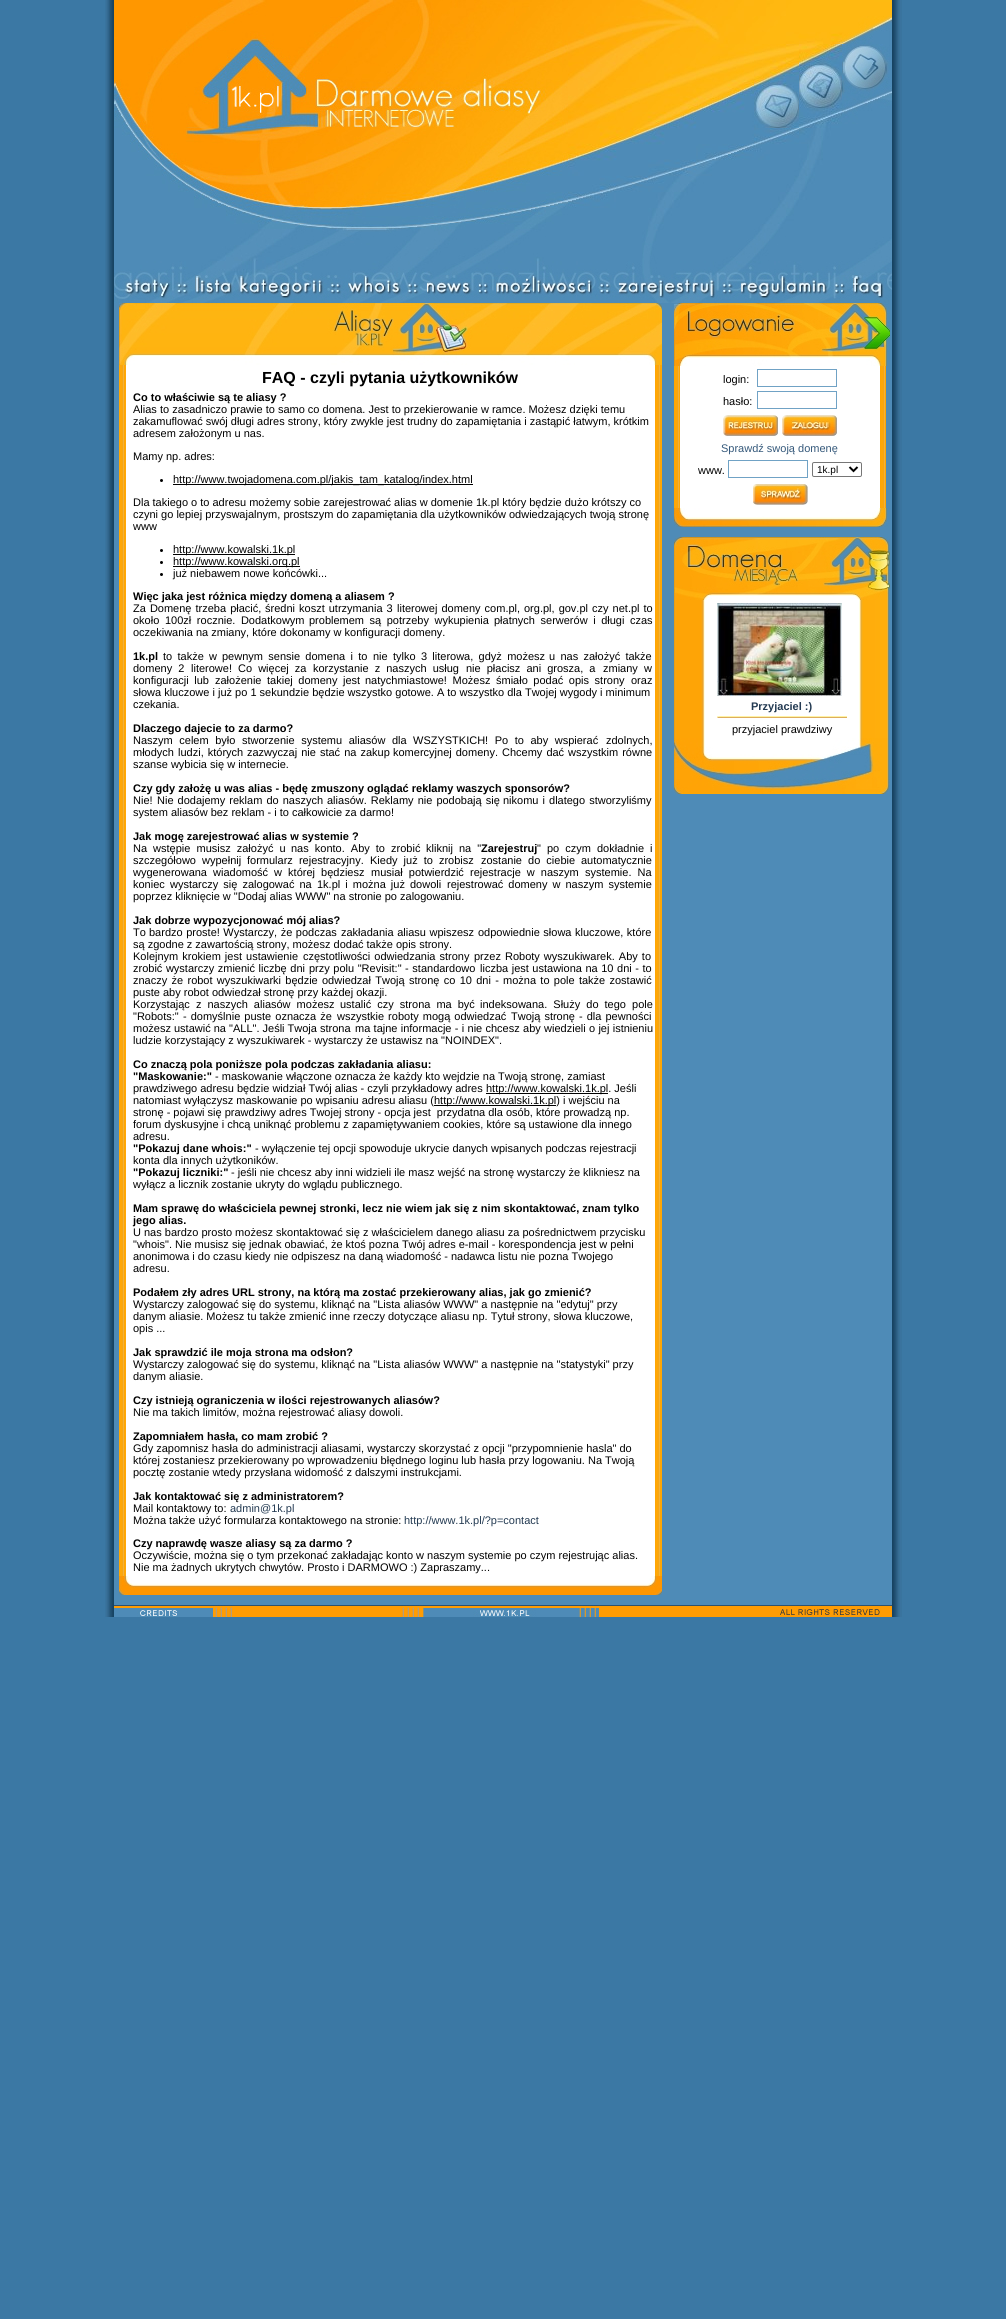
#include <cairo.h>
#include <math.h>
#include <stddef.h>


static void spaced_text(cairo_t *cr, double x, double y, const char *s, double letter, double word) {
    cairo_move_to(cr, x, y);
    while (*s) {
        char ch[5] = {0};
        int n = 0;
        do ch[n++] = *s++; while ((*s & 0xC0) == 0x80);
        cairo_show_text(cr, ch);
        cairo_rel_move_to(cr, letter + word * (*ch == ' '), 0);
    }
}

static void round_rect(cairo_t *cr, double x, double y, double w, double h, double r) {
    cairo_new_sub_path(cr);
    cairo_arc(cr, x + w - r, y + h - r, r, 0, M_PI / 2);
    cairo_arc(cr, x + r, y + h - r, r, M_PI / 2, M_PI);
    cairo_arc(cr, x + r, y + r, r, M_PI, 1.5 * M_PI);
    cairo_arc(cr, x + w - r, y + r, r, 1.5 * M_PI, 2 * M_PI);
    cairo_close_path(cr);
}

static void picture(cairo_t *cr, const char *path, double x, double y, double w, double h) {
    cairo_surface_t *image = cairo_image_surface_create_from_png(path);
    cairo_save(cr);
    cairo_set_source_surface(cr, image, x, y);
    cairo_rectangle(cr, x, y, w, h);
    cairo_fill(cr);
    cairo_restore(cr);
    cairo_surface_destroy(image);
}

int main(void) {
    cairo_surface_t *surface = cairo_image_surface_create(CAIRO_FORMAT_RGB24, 1006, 2319);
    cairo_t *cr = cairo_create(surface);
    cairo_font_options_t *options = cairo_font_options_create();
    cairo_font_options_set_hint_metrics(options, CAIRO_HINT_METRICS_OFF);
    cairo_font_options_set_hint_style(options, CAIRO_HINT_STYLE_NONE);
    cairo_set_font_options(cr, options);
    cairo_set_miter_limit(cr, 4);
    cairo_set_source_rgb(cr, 0.231, 0.471, 0.643);
    cairo_paint(cr);
    picture(cr, "img1.png", 105, 0, 9, 229);
    picture(cr, "img2.png", 114, 0, 454, 229);
    picture(cr, "img3.png", 568, 0, 186, 229);
    picture(cr, "img4.png", 754, 0, 45, 44);
    picture(cr, "img5.png", 754, 44, 45, 84);
    picture(cr, "img6.png", 754, 128, 45, 101);
    picture(cr, "img7.png", 799, 0, 43, 44);
    picture(cr, "img8.png", 799, 44, 43, 84);
    picture(cr, "img9.png", 799, 128, 43, 101);
    picture(cr, "img10.png", 842, 0, 50, 44);
    picture(cr, "img11.png", 842, 44, 50, 84);
    cairo_set_source_rgb(cr, 0.306, 0.545, 0.718);
    cairo_rectangle(cr, 842, 128, 50, 101);
    cairo_fill(cr);
    picture(cr, "img12.png", 892, 0, 10, 229);
    picture(cr, "img13.png", 105, 229, 9, 46);
    picture(cr, "img14.png", 114, 229, 778, 46);
    picture(cr, "img15.png", 892, 229, 10, 46);
    picture(cr, "img16.png", 105, 275, 9, 28);
    picture(cr, "img17.png", 114, 275, 81, 28);
    picture(cr, "img18.png", 195, 275, 153, 28);
    picture(cr, "img19.png", 348, 275, 79, 28);
    picture(cr, "img20.png", 427, 275, 69, 28);
    picture(cr, "img21.png", 496, 275, 123, 28);
    picture(cr, "img22.png", 619, 275, 122, 28);
    picture(cr, "img23.png", 741, 275, 112, 28);
    picture(cr, "img24.png", 853, 275, 39, 28);
    picture(cr, "img25.png", 892, 275, 10, 28);
    picture(cr, "img26.png", 105, 303, 9, 1292);
    cairo_rectangle(cr, 114, 303, 778, 1302);
    cairo_fill(cr);
    picture(cr, "img27.png", 119, 303, 543, 62);
    picture(cr, "img28.png", 119, 365, 7, 1211);
    cairo_set_source_rgb(cr, 1, 1, 1);
    cairo_rectangle(cr, 126, 365, 529, 1211);
    cairo_fill(cr);
    cairo_select_font_face(cr, "Liberation Sans", CAIRO_FONT_SLANT_NORMAL, CAIRO_FONT_WEIGHT_BOLD);
    cairo_set_font_size(cr, 16);
    cairo_set_source_rgb(cr, 0, 0, 0);
    cairo_move_to(cr, 262, 383);
    cairo_show_text(cr, "FAQ - czyli pytania użytkowników");
    cairo_set_font_size(cr, 11);
    cairo_move_to(cr, 133, 401);
    cairo_show_text(cr, "Co to właściwie są te aliasy ?");
    cairo_select_font_face(cr, "Liberation Sans", CAIRO_FONT_SLANT_NORMAL, CAIRO_FONT_WEIGHT_NORMAL);
    cairo_move_to(cr, 133, 413);
    cairo_show_text(cr, "Alias to zasadniczo prawie to samo co domena. Jest to przekierowanie w ramce. Możesz dzięki temu");
    cairo_move_to(cr, 133, 425);
    cairo_show_text(cr, "zakamuflować swój długi adres strony, który zwykle jest trudny do zapamiętania i zastąpić łatwym, krótkim");
    cairo_move_to(cr, 133, 437);
    cairo_show_text(cr, "adresem założonym u nas.");
    cairo_move_to(cr, 133, 460);
    cairo_show_text(cr, "Mamy np. adres:");
    cairo_new_path(cr);
    cairo_arc(cr, 161.5, 480.5, 1.5, 0, 2 * M_PI);
    cairo_fill(cr);
    cairo_rectangle(cr, 173, 484, 300, 1);
    cairo_fill(cr);
    cairo_move_to(cr, 173, 483);
    cairo_show_text(cr, "http://www.twojadomena.com.pl/jakis_tam_katalog/index.html");
    cairo_move_to(cr, 133, 506);
    cairo_show_text(cr, "Dla takiego o to adresu możemy sobie zarejestrować alias w domenie 1k.pl który będzie dużo krótszy co");
    cairo_move_to(cr, 133, 518);
    cairo_show_text(cr, "czyni go lepiej przyswajalnym, prostszym do zapamiętania dla użytkowników odwiedzających twoją stronę");
    cairo_move_to(cr, 133, 530);
    cairo_show_text(cr, "www");
    cairo_new_path(cr);
    cairo_arc(cr, 161.5, 550.5, 1.5, 0, 2 * M_PI);
    cairo_fill(cr);
    cairo_rectangle(cr, 173, 554, 122, 1);
    cairo_fill(cr);
    cairo_move_to(cr, 173, 553);
    cairo_show_text(cr, "http://www.kowalski.1k.pl");
    cairo_new_path(cr);
    cairo_arc(cr, 161.5, 562.5, 1.5, 0, 2 * M_PI);
    cairo_fill(cr);
    cairo_rectangle(cr, 173, 566, 127, 1);
    cairo_fill(cr);
    cairo_move_to(cr, 173, 565);
    cairo_show_text(cr, "http://www.kowalski.orq.pl");
    cairo_new_path(cr);
    cairo_arc(cr, 161.5, 574.5, 1.5, 0, 2 * M_PI);
    cairo_fill(cr);
    cairo_move_to(cr, 173, 577);
    cairo_show_text(cr, "już niebawem nowe końcówki...");
    cairo_select_font_face(cr, "Liberation Sans", CAIRO_FONT_SLANT_NORMAL, CAIRO_FONT_WEIGHT_BOLD);
    cairo_move_to(cr, 133, 600);
    cairo_show_text(cr, "Więc jaka jest różnica między domeną a aliasem ?");
    cairo_select_font_face(cr, "Liberation Sans", CAIRO_FONT_SLANT_NORMAL, CAIRO_FONT_WEIGHT_NORMAL);
    spaced_text(cr, 133, 612, "Za Domenę trzeba płacić,", 0, 1);
    spaced_text(cr, 265, 612, "średni koszt utrzymania 3", 0, 1);
    spaced_text(cr, 397, 612, "literowej domeny com.pl,", 0, 1);
    spaced_text(cr, 524, 612, "org.pl, gov.pl czy net.pl to", 0, 1);
    cairo_move_to(cr, 133, 624);
    cairo_show_text(cr, "około");
    spaced_text(cr, 165, 624, "100zł rocznie. Dodatkowym", 0, 2.5);
    spaced_text(cr, 309, 624, "problemem są potrzeby wykupienia", 0, 2.5);
    spaced_text(cr, 494, 624, "płatnych serwerów i długi czas", 0, 2.5);
    cairo_move_to(cr, 133, 636);
    cairo_show_text(cr, "oczekiwania na zmiany, które dokonamy w konfiguracji domeny.");
    cairo_select_font_face(cr, "Liberation Sans", CAIRO_FONT_SLANT_NORMAL, CAIRO_FONT_WEIGHT_BOLD);
    cairo_move_to(cr, 133, 660);
    cairo_show_text(cr, "1k.pl");
    cairo_select_font_face(cr, "Liberation Sans", CAIRO_FONT_SLANT_NORMAL, CAIRO_FONT_WEIGHT_NORMAL);
    spaced_text(cr, 163, 660, "to także w", 0, 2.25);
    spaced_text(cr, 222, 660, "pewnym sensie domena i to", 0, 2.25);
    spaced_text(cr, 373, 660, "nie tylko 3 literowa, gdyż możesz", 0, 2.25);
    spaced_text(cr, 549, 660, "u nas założyć także", 0, 2.25);
    spaced_text(cr, 133, 672, "domeny 2", 0, 3);
    spaced_text(cr, 191, 672, "literowe! Co więcej za", 0, 3);
    spaced_text(cr, 313, 672, "korzystanie z naszych usług", 0, 3);
    spaced_text(cr, 466, 672, "nie płacisz ani grosza, a", 0, 3);
    spaced_text(cr, 603, 672, "zmiany w", 0, 3);
    spaced_text(cr, 133, 684, "konfiguracji lub", 0, 2.5);
    spaced_text(cr, 215, 684, "założenie takiej domeny jest", 0, 2.5);
    spaced_text(cr, 365, 684, "natychmiastowe! Możesz", 0, 2.5);
    spaced_text(cr, 496, 684, "śmiało podać opis strony", 0, 2.5);
    cairo_move_to(cr, 631, 684);
    cairo_show_text(cr, "oraz");
    cairo_move_to(cr, 133, 696);
    cairo_show_text(cr, "słowa kluczowe i już po 1 sekundzie będzie wszystko gotowe. A to wszystko dla Twojej wygody i minimum");
    cairo_move_to(cr, 133, 708);
    cairo_show_text(cr, "czekania.");
    cairo_select_font_face(cr, "Liberation Sans", CAIRO_FONT_SLANT_NORMAL, CAIRO_FONT_WEIGHT_BOLD);
    cairo_move_to(cr, 133, 732);
    cairo_show_text(cr, "Dlaczego dajecie to za darmo?");
    cairo_select_font_face(cr, "Liberation Sans", CAIRO_FONT_SLANT_NORMAL, CAIRO_FONT_WEIGHT_NORMAL);
    spaced_text(cr, 133, 744, "Naszym celem było", 0, 3.5);
    spaced_text(cr, 242, 744, "stworzenie systemu aliasów dla", 0, 3.5);
    spaced_text(cr, 413, 744, "WSZYSTKICH! Po to aby wspierać", 0, 3.5);
    cairo_move_to(cr, 606, 744);
    cairo_show_text(cr, "zdolnych,");
    spaced_text(cr, 133, 756, "młodych ludzi, których", 0, 1);
    spaced_text(cr, 247, 756, "zazwyczaj nie stać na zakup", 0, 1);
    spaced_text(cr, 393, 756, "komercyjnej domeny. Chcemy dać", 0, 1);
    spaced_text(cr, 568, 756, "wszystkim równe", 0, 1);
    cairo_move_to(cr, 133, 768);
    cairo_show_text(cr, "szanse wybicia się w internecie.");
    cairo_select_font_face(cr, "Liberation Sans", CAIRO_FONT_SLANT_NORMAL, CAIRO_FONT_WEIGHT_BOLD);
    cairo_move_to(cr, 133, 792);
    cairo_show_text(cr, "Czy gdy założę u was alias - będę zmuszony oglądać reklamy waszych sponsorów?");
    cairo_select_font_face(cr, "Liberation Sans", CAIRO_FONT_SLANT_NORMAL, CAIRO_FONT_WEIGHT_NORMAL);
    cairo_move_to(cr, 133, 804);
    cairo_show_text(cr, "Nie!");
    spaced_text(cr, 157, 804, "Nie dodajemy reklam do naszych", 0, 1);
    spaced_text(cr, 327, 804, "aliasów. Reklamy nie podobają się", 0, 1);
    spaced_text(cr, 503, 804, "nikomu i dlatego stworzyliśmy", 0, 1);
    cairo_move_to(cr, 133, 816);
    cairo_show_text(cr, "system aliasów bez reklam - i to całkowicie za darmo!");
    cairo_select_font_face(cr, "Liberation Sans", CAIRO_FONT_SLANT_NORMAL, CAIRO_FONT_WEIGHT_BOLD);
    cairo_move_to(cr, 133, 840);
    cairo_show_text(cr, "Jak mogę zarejestrować alias w systemie ?");
    cairo_select_font_face(cr, "Liberation Sans", CAIRO_FONT_SLANT_NORMAL, CAIRO_FONT_WEIGHT_NORMAL);
    spaced_text(cr, 133, 852, "Na wstępie musisz założyć u", 0, 3);
    spaced_text(cr, 291, 852, "nas konto. Aby to zrobić", 0, 3);
    spaced_text(cr, 426, 852, "kliknij na \"", 0, 3);
    cairo_select_font_face(cr, "Liberation Sans", CAIRO_FONT_SLANT_NORMAL, CAIRO_FONT_WEIGHT_BOLD);
    cairo_move_to(cr, 481, 852);
    cairo_show_text(cr, "Zarejestruj");
    cairo_select_font_face(cr, "Liberation Sans", CAIRO_FONT_SLANT_NORMAL, CAIRO_FONT_WEIGHT_NORMAL);
    spaced_text(cr, 537, 852, "\" po czym dokładnie i", 0, 3);
    spaced_text(cr, 133, 864, "szczegółowo wypełnij", 0, 3);
    spaced_text(cr, 247, 864, "formularz rejestracyjny.", 0, 3);
    spaced_text(cr, 370, 864, "Kiedy już to zrobisz", 0, 3);
    spaced_text(cr, 481, 864, "zostanie do ciebie", 0, 3);
    cairo_move_to(cr, 581, 864);
    cairo_show_text(cr, "automatycznie");
    cairo_move_to(cr, 133, 876);
    cairo_show_text(cr, "wygenerowana");
    spaced_text(cr, 213, 876, "wiadomość w której będziesz", 0, 3);
    spaced_text(cr, 371, 876, "musiał potwierdzić", 0, 3);
    spaced_text(cr, 470, 876, "rejestracje w naszym", 0, 3);
    spaced_text(cr, 585, 876, "systemie. Na", 0, 3);
    cairo_move_to(cr, 133, 888);
    cairo_show_text(cr, "koniec");
    spaced_text(cr, 170, 888, "wystarczy się zalogować na", 0, 2);
    spaced_text(cr, 317, 888, "1k.pl i można już dowoli", 0, 2);
    spaced_text(cr, 447, 888, "rejestrować domeny w naszym systemie", 0, 2);
    cairo_move_to(cr, 133, 900);
    cairo_show_text(cr, "poprzez kliknięcie w \"Dodaj alias WWW\" na stronie po zalogowaniu.");
    cairo_select_font_face(cr, "Liberation Sans", CAIRO_FONT_SLANT_NORMAL, CAIRO_FONT_WEIGHT_BOLD);
    cairo_move_to(cr, 133, 924);
    cairo_show_text(cr, "Jak dobrze wypozycjonować mój alias?");
    cairo_select_font_face(cr, "Liberation Sans", CAIRO_FONT_SLANT_NORMAL, CAIRO_FONT_WEIGHT_NORMAL);
    cairo_move_to(cr, 133, 936);
    cairo_show_text(cr, "To");
    spaced_text(cr, 149, 936, "bardzo proste! Wystarczy, że podczas", 0, 0.5);
    spaced_text(cr, 341, 936, "zakładania aliasu wpiszesz", 0, 0.5);
    spaced_text(cr, 478, 936, "odpowiednie słowa kluczowe, które", 0, 0.5);
    cairo_move_to(cr, 133, 948);
    cairo_show_text(cr, "są zgodne z zawartością strony, możesz dodać także opis strony.");
    spaced_text(cr, 133, 960, "Kolejnym krokiem jest ustawienie", 0, 1);
    spaced_text(cr, 303, 960, "częstotliwości odwiedzania strony", 0, 1);
    spaced_text(cr, 474, 960, "przez Roboty wyszukiwarek. Aby to", 0, 1);
    spaced_text(cr, 133, 972, "zrobić wystarczy zmienić liczbę dni", 0, 0.5);
    spaced_text(cr, 309, 972, "przy polu \"Revisit:\" - standardowo", 0, 0.5);
    spaced_text(cr, 480, 972, "liczba jest ustawiona na 10 dni - to", 0, 0.5);
    spaced_text(cr, 133, 984, "znaczy że robot wyszukiwarki będzie", 0, 1.25);
    spaced_text(cr, 322, 984, "odwiedzał Twoją stronę co 10 dni -", 0, 1.25);
    spaced_text(cr, 503, 984, "można to pole także zostawić", 0, 1.25);
    cairo_move_to(cr, 133, 996);
    cairo_show_text(cr, "puste aby robot odwiedzał stronę przy każdej okazji.");
    spaced_text(cr, 133, 1008, "Korzystając z naszych aliasów możesz", 0, 3);
    spaced_text(cr, 340, 1008, "ustalić czy strona ma być", 0, 3);
    spaced_text(cr, 480, 1008, "indeksowana. Służy do tego pole", 0, 3);
    cairo_move_to(cr, 133, 1020);
    cairo_show_text(cr, "\"Robots:\"");
    spaced_text(cr, 183, 1020, "- domyślnie puste oznacza że", 0, 1);
    spaced_text(cr, 337, 1020, "wszystkie roboty mogą odwiedzać", 0, 1);
    spaced_text(cr, 511, 1020, "Twoją stronę - dla pewności", 0, 1);
    cairo_move_to(cr, 133, 1032);
    cairo_show_text(cr, "możesz");
    cairo_move_to(cr, 174, 1032);
    cairo_show_text(cr, "ustawić na \"ALL\". Jeśli Twoja strona");
    spaced_text(cr, 355, 1032, "ma tajne informacje - i nie chcesz aby wiedzieli o jej istnieniu", 0, 0.25);
    cairo_move_to(cr, 133, 1044);
    cairo_show_text(cr, "ludzie korzystający z wyszukiwarek - wystarczy że ustawisz na \"NOINDEX\".");
    cairo_select_font_face(cr, "Liberation Sans", CAIRO_FONT_SLANT_NORMAL, CAIRO_FONT_WEIGHT_BOLD);
    cairo_move_to(cr, 133, 1068);
    cairo_show_text(cr, "Co znaczą pola poniższe pola podczas zakładania aliasu:");
    cairo_move_to(cr, 133, 1080);
    cairo_show_text(cr, "\"Maskowanie:\"");
    cairo_select_font_face(cr, "Liberation Sans", CAIRO_FONT_SLANT_NORMAL, CAIRO_FONT_WEIGHT_NORMAL);
    cairo_move_to(cr, 215, 1080);
    cairo_show_text(cr, "- maskowanie włączone oznacza że każdy kto wejdzie na Twoją stronę, zamiast");
    cairo_move_to(cr, 133, 1092);
    cairo_show_text(cr, "prawdziwego adresu będzie widział Twój alias - czyli przykładowy adres");
    cairo_rectangle(cr, 486, 1093, 122, 1);
    cairo_fill(cr);
    cairo_move_to(cr, 486, 1092);
    cairo_show_text(cr, "http://www.kowalski.1k.pl. Jeśli");
    cairo_move_to(cr, 133, 1104);
    cairo_show_text(cr, "natomiast wyłączysz maskowanie po wpisaniu adresu aliasu (");
    cairo_rectangle(cr, 434, 1105, 122, 1);
    cairo_fill(cr);
    cairo_move_to(cr, 434, 1104);
    cairo_show_text(cr, "http://www.kowalski.1k.pl) i wejściu na");
    cairo_move_to(cr, 133, 1116);
    cairo_show_text(cr, "stronę - pojawi się prawdziwy adres Twojej strony - opcja jest  przydatna dla osób, które prowadzą np.");
    cairo_move_to(cr, 133, 1128);
    cairo_show_text(cr, "forum dyskusyjne i chcą uniknąć problemu z zapamiętywaniem cookies, które są ustawione dla innego");
    cairo_move_to(cr, 133, 1140);
    cairo_show_text(cr, "adresu.");
    cairo_select_font_face(cr, "Liberation Sans", CAIRO_FONT_SLANT_NORMAL, CAIRO_FONT_WEIGHT_BOLD);
    cairo_move_to(cr, 133, 1152);
    cairo_show_text(cr, "\"Pokazuj dane whois:\"");
    cairo_select_font_face(cr, "Liberation Sans", CAIRO_FONT_SLANT_NORMAL, CAIRO_FONT_WEIGHT_NORMAL);
    cairo_move_to(cr, 255, 1152);
    cairo_show_text(cr, "- wyłączenie tej opcji spowoduje ukrycie danych wpisanych podczas rejestracji");
    cairo_move_to(cr, 133, 1164);
    cairo_show_text(cr, "konta dla innych użytkoników.");
    cairo_select_font_face(cr, "Liberation Sans", CAIRO_FONT_SLANT_NORMAL, CAIRO_FONT_WEIGHT_BOLD);
    cairo_move_to(cr, 133, 1176);
    cairo_show_text(cr, "\"Pokazuj liczniki:\"");
    cairo_select_font_face(cr, "Liberation Sans", CAIRO_FONT_SLANT_NORMAL, CAIRO_FONT_WEIGHT_NORMAL);
    cairo_move_to(cr, 231, 1176);
    cairo_show_text(cr, "- jeśli nie chcesz aby inni widzieli ile masz wejść na stronę wystarczy że klikniesz na");
    cairo_move_to(cr, 133, 1188);
    cairo_show_text(cr, "wyłącz a licznik zostanie ukryty do wglądu publicznego.");
    cairo_select_font_face(cr, "Liberation Sans", CAIRO_FONT_SLANT_NORMAL, CAIRO_FONT_WEIGHT_BOLD);
    cairo_move_to(cr, 133, 1212);
    cairo_show_text(cr, "Mam sprawę do właściciela pewnej stronki, lecz nie wiem jak się z nim skontaktować, znam tylko");
    cairo_move_to(cr, 133, 1224);
    cairo_show_text(cr, "jego alias.");
    cairo_select_font_face(cr, "Liberation Sans", CAIRO_FONT_SLANT_NORMAL, CAIRO_FONT_WEIGHT_NORMAL);
    cairo_move_to(cr, 133, 1236);
    cairo_show_text(cr, "U nas bardzo prosto możesz skontaktować się z właścicielem danego aliasu za pośrednictwem przycisku");
    cairo_move_to(cr, 133, 1248);
    cairo_show_text(cr, "\"whois\". Nie musisz się jednak obawiać, że ktoś pozna Twój adres e-mail - korespondencja jest w pełni");
    cairo_move_to(cr, 133, 1260);
    cairo_show_text(cr, "anonimowa i do czasu kiedy nie odpiszesz na daną wiadomość - nadawca listu nie pozna Twojego");
    cairo_move_to(cr, 133, 1272);
    cairo_show_text(cr, "adresu.");
    cairo_select_font_face(cr, "Liberation Sans", CAIRO_FONT_SLANT_NORMAL, CAIRO_FONT_WEIGHT_BOLD);
    cairo_move_to(cr, 133, 1296);
    cairo_show_text(cr, "Podałem zły adres URL strony, na którą ma zostać przekierowany alias, jak go zmienić?");
    cairo_select_font_face(cr, "Liberation Sans", CAIRO_FONT_SLANT_NORMAL, CAIRO_FONT_WEIGHT_NORMAL);
    cairo_move_to(cr, 133, 1308);
    cairo_show_text(cr, "Wystarczy zalogować się do systemu, kliknąć na \"Lista aliasów WWW\" a następnie na \"edytuj\" przy");
    cairo_move_to(cr, 133, 1320);
    cairo_show_text(cr, "danym aliasie. Możesz tu także zmienić inne rzeczy dotyczące aliasu np. Tytuł strony, słowa kluczowe,");
    cairo_move_to(cr, 133, 1332);
    cairo_show_text(cr, "opis ...");
    cairo_select_font_face(cr, "Liberation Sans", CAIRO_FONT_SLANT_NORMAL, CAIRO_FONT_WEIGHT_BOLD);
    cairo_move_to(cr, 133, 1356);
    cairo_show_text(cr, "Jak sprawdzić ile moja strona ma odsłon?");
    cairo_select_font_face(cr, "Liberation Sans", CAIRO_FONT_SLANT_NORMAL, CAIRO_FONT_WEIGHT_NORMAL);
    cairo_move_to(cr, 133, 1368);
    cairo_show_text(cr, "Wystarczy zalogować się do systemu, kliknąć na \"Lista aliasów WWW\" a następnie na \"statystyki\" przy");
    cairo_move_to(cr, 133, 1380);
    cairo_show_text(cr, "danym aliasie.");
    cairo_select_font_face(cr, "Liberation Sans", CAIRO_FONT_SLANT_NORMAL, CAIRO_FONT_WEIGHT_BOLD);
    cairo_move_to(cr, 133, 1404);
    cairo_show_text(cr, "Czy istnieją ograniczenia w ilości rejestrowanych aliasów?");
    cairo_select_font_face(cr, "Liberation Sans", CAIRO_FONT_SLANT_NORMAL, CAIRO_FONT_WEIGHT_NORMAL);
    cairo_move_to(cr, 133, 1416);
    cairo_show_text(cr, "Nie ma takich limitów, można rejestrować aliasy dowoli.");
    cairo_select_font_face(cr, "Liberation Sans", CAIRO_FONT_SLANT_NORMAL, CAIRO_FONT_WEIGHT_BOLD);
    cairo_move_to(cr, 133, 1440);
    cairo_show_text(cr, "Zapomniałem hasła, co mam zrobić ?");
    cairo_select_font_face(cr, "Liberation Sans", CAIRO_FONT_SLANT_NORMAL, CAIRO_FONT_WEIGHT_NORMAL);
    cairo_move_to(cr, 133, 1452);
    cairo_show_text(cr, "Gdy zapomnisz hasła do administracji aliasami, wystarczy skorzystać z opcji \"przypomnienie hasla\" do");
    cairo_move_to(cr, 133, 1464);
    cairo_show_text(cr, "której zostaniesz przekierowany po wprowadzeniu błędnego loginu lub hasła przy logowaniu. Na Twoją");
    cairo_move_to(cr, 133, 1476);
    cairo_show_text(cr, "pocztę zostanie wtedy przysłana widomość z dalszymi instrukcjami.");
    cairo_select_font_face(cr, "Liberation Sans", CAIRO_FONT_SLANT_NORMAL, CAIRO_FONT_WEIGHT_BOLD);
    cairo_move_to(cr, 133, 1500);
    cairo_show_text(cr, "Jak kontaktować się z administratorem?");
    cairo_select_font_face(cr, "Liberation Sans", CAIRO_FONT_SLANT_NORMAL, CAIRO_FONT_WEIGHT_NORMAL);
    cairo_move_to(cr, 133, 1512);
    cairo_show_text(cr, "Mail kontaktowy to:");
    cairo_set_source_rgb(cr, 0.137, 0.227, 0.322);
    cairo_move_to(cr, 230, 1512);
    cairo_show_text(cr, "admin@1k.pl");
    cairo_set_source_rgb(cr, 0, 0, 0);
    cairo_move_to(cr, 133, 1524);
    cairo_show_text(cr, "Można także użyć formularza kontaktowego na stronie:");
    cairo_set_source_rgb(cr, 0.137, 0.227, 0.322);
    cairo_move_to(cr, 404, 1524);
    cairo_show_text(cr, "http://www.1k.pl/?p=contact");
    cairo_select_font_face(cr, "Liberation Sans", CAIRO_FONT_SLANT_NORMAL, CAIRO_FONT_WEIGHT_BOLD);
    cairo_set_source_rgb(cr, 0, 0, 0);
    cairo_move_to(cr, 133, 1547);
    cairo_show_text(cr, "Czy naprawdę wasze aliasy są za darmo ?");
    cairo_select_font_face(cr, "Liberation Sans", CAIRO_FONT_SLANT_NORMAL, CAIRO_FONT_WEIGHT_NORMAL);
    cairo_move_to(cr, 133, 1559);
    cairo_show_text(cr, "Oczywiście, można się o tym przekonać zakładając konto w naszym systemie po czym rejestrując alias.");
    cairo_move_to(cr, 133, 1571);
    cairo_show_text(cr, "Nie ma żadnych ukrytych chwytów. Prosto i DARMOWO :) Zapraszamy...");
    picture(cr, "img28.png", 655, 365, 7, 1211);
    picture(cr, "img29.png", 119, 1576, 543, 19);
    picture(cr, "img30.png", 674, 303, 216, 63);
    picture(cr, "img31.png", 674, 366, 6, 142);
    cairo_set_source_rgb(cr, 1, 1, 1);
    cairo_rectangle(cr, 680, 366, 200, 142);
    cairo_fill(cr);
    cairo_set_source_rgb(cr, 0, 0, 0);
    cairo_move_to(cr, 723, 383);
    cairo_show_text(cr, "login:");
    cairo_rectangle(cr, 757.5, 369.5, 79, 17);
    cairo_set_source_rgb(cr, 0.439, 0.635, 0.773);
    cairo_set_line_width(cr, 1);
    cairo_stroke(cr);
    cairo_set_source_rgb(cr, 0, 0, 0);
    cairo_move_to(cr, 723, 405);
    cairo_show_text(cr, "hasło:");
    cairo_rectangle(cr, 757.5, 391.5, 79, 17);
    cairo_set_source_rgb(cr, 0.439, 0.635, 0.773);
    cairo_stroke(cr);
    picture(cr, "img32.png", 723, 415, 55, 21);
    picture(cr, "img33.png", 782, 415, 55, 21);
    cairo_set_source_rgb(cr, 0.204, 0.345, 0.478);
    cairo_move_to(cr, 721, 452);
    cairo_show_text(cr, "Sprawdź swoją domenę");
    cairo_set_source_rgb(cr, 0, 0, 0);
    cairo_move_to(cr, 698, 474);
    cairo_show_text(cr, "www.");
    cairo_rectangle(cr, 728.5, 460.5, 79, 17);
    cairo_set_source_rgb(cr, 0.439, 0.635, 0.773);
    cairo_stroke(cr);
    round_rect(cr, 812.5, 462.5, 49, 14, 1.5);
    cairo_set_source_rgb(cr, 0.463, 0.463, 0.463);
    cairo_stroke(cr);
    cairo_new_path(cr);
    cairo_move_to(cr, 849.5, 467);
    cairo_line_to(cr, 853.5, 471);
    cairo_line_to(cr, 857.5, 467);
    cairo_set_source_rgb(cr, 0, 0, 0);
    cairo_set_line_width(cr, 2);
    cairo_stroke(cr);
    cairo_set_font_size(cr, 10);
    cairo_move_to(cr, 817, 473);
    cairo_show_text(cr, "1k.pl");
    picture(cr, "img34.png", 753, 484, 55, 21);
    picture(cr, "img31.png", 880, 366, 6, 142);
    picture(cr, "img35.png", 674, 508, 214, 19);
    picture(cr, "img36.png", 674, 537, 216, 63);
    picture(cr, "img37.png", 674, 600, 216, 138);
    picture(cr, "img38.png", 717, 603, 125, 93);
    cairo_select_font_face(cr, "Liberation Sans", CAIRO_FONT_SLANT_NORMAL, CAIRO_FONT_WEIGHT_BOLD);
    cairo_set_font_size(cr, 11);
    cairo_set_source_rgb(cr, 0.137, 0.227, 0.322);
    cairo_move_to(cr, 751, 710);
    cairo_show_text(cr, "Przyjaciel :)");
    picture(cr, "img39.png", 717, 716, 130, 2);
    cairo_select_font_face(cr, "Liberation Sans", CAIRO_FONT_SLANT_NORMAL, CAIRO_FONT_WEIGHT_NORMAL);
    cairo_set_source_rgb(cr, 0, 0, 0);
    cairo_move_to(cr, 732, 733);
    cairo_show_text(cr, "przyjaciel prawdziwy");
    picture(cr, "img40.png", 674, 738, 216, 56);
    picture(cr, "img41.png", 892, 303, 10, 1292);
    picture(cr, "img42.png", 105, 1595, 9, 10);
    picture(cr, "img43.png", 892, 1595, 10, 10);
    picture(cr, "img44.png", 105, 1605, 9, 12);
    picture(cr, "img45.png", 114, 1605, 778, 12);
    picture(cr, "img46.png", 892, 1605, 10, 12);
    cairo_surface_write_to_png(surface, "page.png");
    cairo_font_options_destroy(options);
    cairo_destroy(cr);
    cairo_surface_destroy(surface);
    return 0;
}
